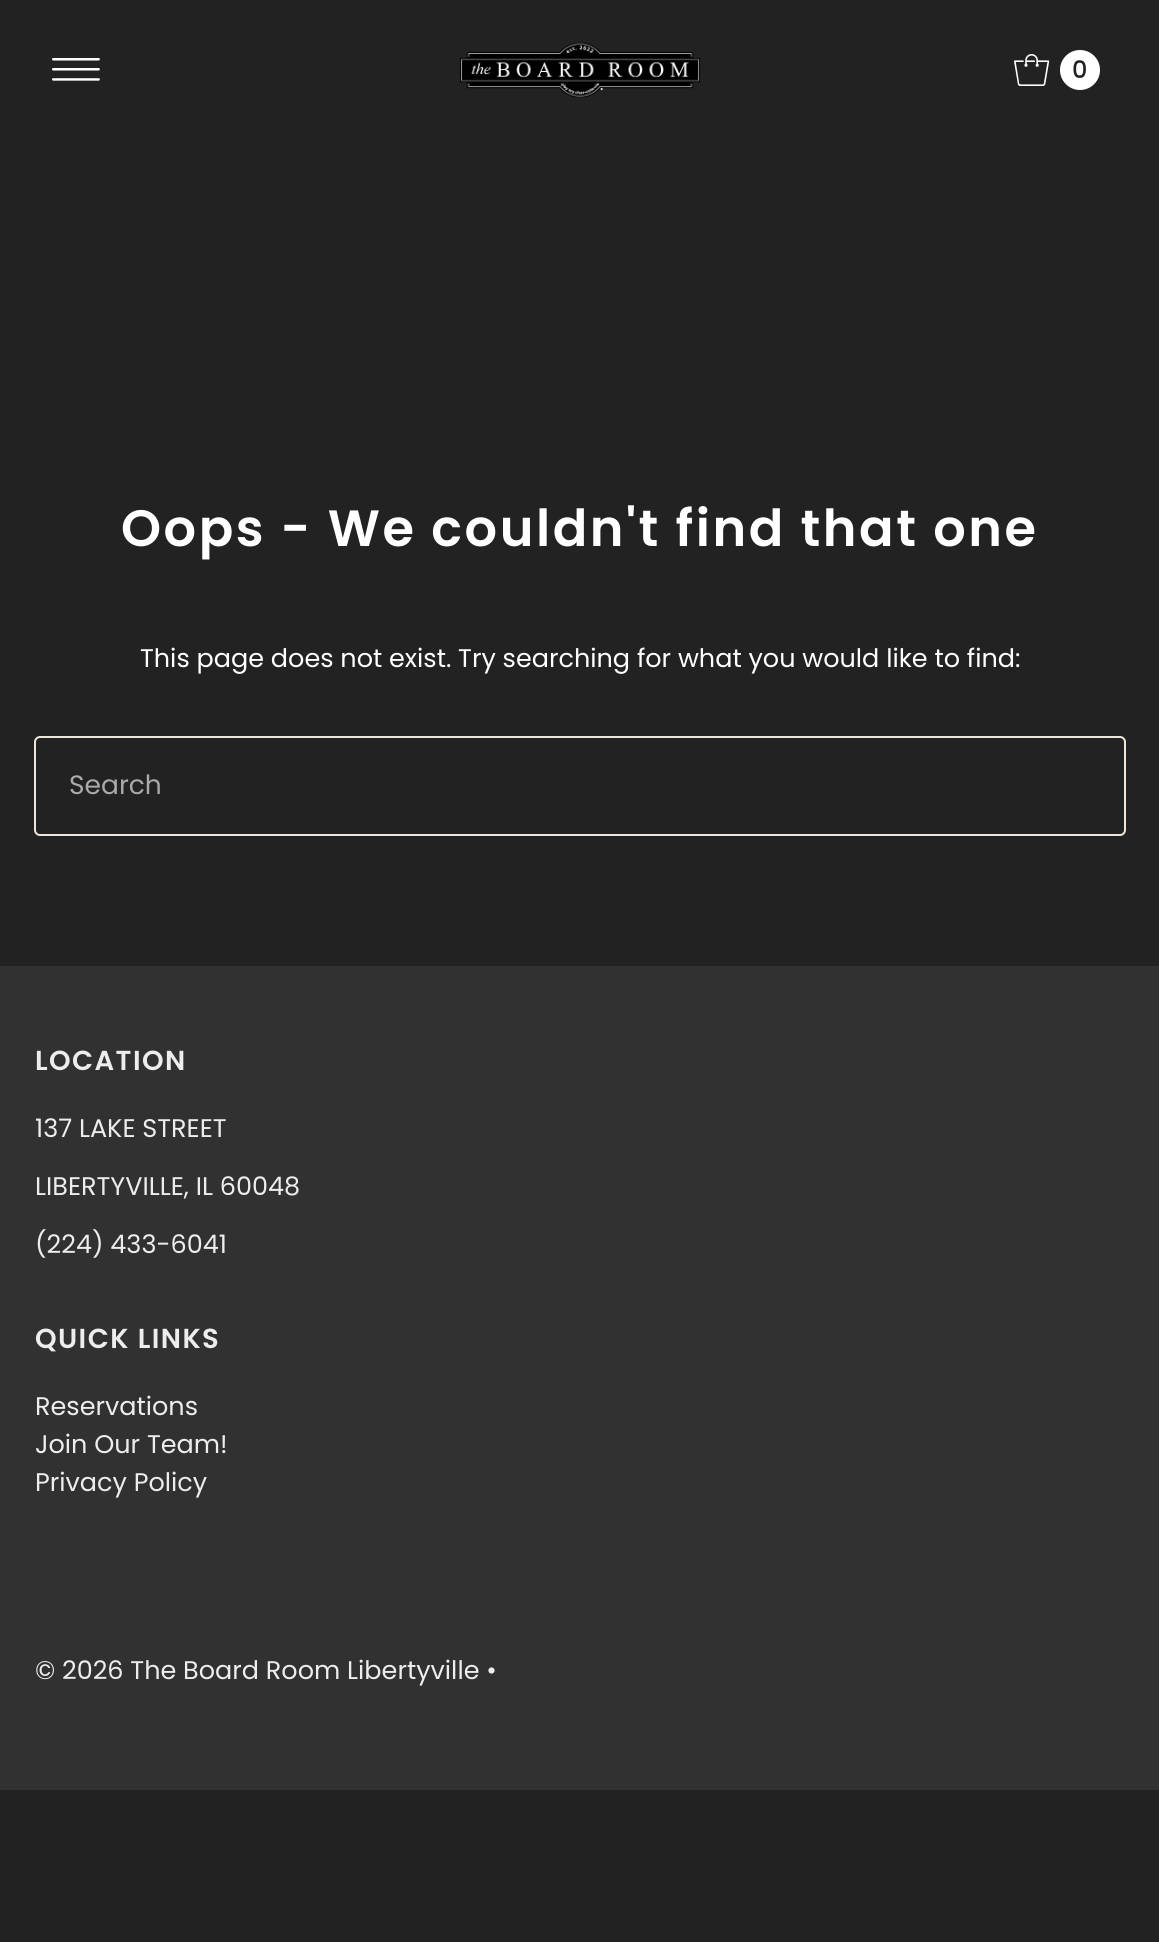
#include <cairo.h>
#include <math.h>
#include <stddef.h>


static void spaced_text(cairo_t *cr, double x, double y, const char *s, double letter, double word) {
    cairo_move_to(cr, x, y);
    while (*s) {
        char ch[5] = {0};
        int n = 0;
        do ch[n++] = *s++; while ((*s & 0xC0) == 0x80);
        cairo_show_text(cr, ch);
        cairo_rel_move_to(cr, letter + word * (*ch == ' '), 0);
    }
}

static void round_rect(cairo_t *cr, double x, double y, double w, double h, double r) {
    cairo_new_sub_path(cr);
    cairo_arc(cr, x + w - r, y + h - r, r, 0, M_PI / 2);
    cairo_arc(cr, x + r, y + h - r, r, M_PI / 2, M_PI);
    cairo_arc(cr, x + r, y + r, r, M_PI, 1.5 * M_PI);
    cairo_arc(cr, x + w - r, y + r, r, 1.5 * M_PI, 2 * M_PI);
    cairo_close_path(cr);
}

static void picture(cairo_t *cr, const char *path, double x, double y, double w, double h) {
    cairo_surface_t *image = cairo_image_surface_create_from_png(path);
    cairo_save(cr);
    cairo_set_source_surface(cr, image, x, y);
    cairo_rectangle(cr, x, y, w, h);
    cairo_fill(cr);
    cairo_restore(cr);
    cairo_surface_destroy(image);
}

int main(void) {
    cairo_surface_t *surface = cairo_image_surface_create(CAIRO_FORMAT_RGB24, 1159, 1942);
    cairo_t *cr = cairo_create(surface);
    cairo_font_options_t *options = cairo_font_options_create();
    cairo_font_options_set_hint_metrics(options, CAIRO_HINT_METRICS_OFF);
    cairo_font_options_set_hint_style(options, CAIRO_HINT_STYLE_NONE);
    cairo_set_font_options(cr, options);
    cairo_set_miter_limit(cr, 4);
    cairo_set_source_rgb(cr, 0.133, 0.133, 0.133);
    cairo_paint(cr);
    picture(cr, "img1.png", 52, 58, 48, 23);
    picture(cr, "img2.png", 460, 42, 240, 56);
    picture(cr, "img3.png", 1014, 54, 36, 32);
    cairo_set_source_rgb(cr, 1, 1, 1);
    cairo_arc(cr, 1080, 70, 20, 0, 2 * M_PI);
    cairo_fill(cr);
    cairo_select_font_face(cr, "Poppins Medium", CAIRO_FONT_SLANT_NORMAL, CAIRO_FONT_WEIGHT_NORMAL);
    cairo_set_font_size(cr, 24);
    cairo_set_source_rgb(cr, 0.133, 0.133, 0.133);
    cairo_move_to(cr, 1072, 78);
    cairo_show_text(cr, "0");
    cairo_select_font_face(cr, "Poppins SemiBold", CAIRO_FONT_SLANT_NORMAL, CAIRO_FONT_WEIGHT_NORMAL);
    cairo_set_font_size(cr, 51);
    cairo_set_source_rgb(cr, 1, 1, 1);
    spaced_text(cr, 121, 546, "Oops - We couldn't find that one", 2.55, 0);
    cairo_select_font_face(cr, "Poppins", CAIRO_FONT_SLANT_NORMAL, CAIRO_FONT_WEIGHT_NORMAL);
    cairo_set_font_size(cr, 25.5);
    cairo_move_to(cr, 140, 667);
    cairo_show_text(cr, "This page does not exist. Try searching for what you would like to find:");
    round_rect(cr, 35, 737, 1090, 98, 5);
    cairo_set_source_rgb(cr, 0.937, 0.898, 0.855);
    cairo_stroke(cr);
    cairo_set_font_size(cr, 26.5);
    cairo_set_source_rgb(cr, 0.667, 0.667, 0.667);
    cairo_move_to(cr, 69, 794);
    cairo_show_text(cr, "Search");
    cairo_set_source_rgb(cr, 0.192, 0.192, 0.192);
    cairo_rectangle(cr, 0, 966, 1159, 824);
    cairo_fill(cr);
    cairo_select_font_face(cr, "Poppins SemiBold", CAIRO_FONT_SLANT_NORMAL, CAIRO_FONT_WEIGHT_NORMAL);
    cairo_set_font_size(cr, 27.5);
    cairo_set_source_rgb(cr, 0.929, 0.929, 0.929);
    spaced_text(cr, 35, 1070, "LOCATION", 1.4, 0);
    cairo_select_font_face(cr, "Poppins", CAIRO_FONT_SLANT_NORMAL, CAIRO_FONT_WEIGHT_NORMAL);
    cairo_set_font_size(cr, 25.5);
    cairo_move_to(cr, 35, 1137);
    cairo_show_text(cr, "137 LAKE STREET");
    cairo_move_to(cr, 35, 1195);
    cairo_show_text(cr, "LIBERTYVILLE, IL 60048");
    cairo_move_to(cr, 35, 1253);
    cairo_show_text(cr, "(224) 433-6041");
    cairo_select_font_face(cr, "Poppins SemiBold", CAIRO_FONT_SLANT_NORMAL, CAIRO_FONT_WEIGHT_NORMAL);
    cairo_set_font_size(cr, 27.5);
    spaced_text(cr, 35, 1348, "QUICK LINKS", 1.4, 0);
    cairo_select_font_face(cr, "Poppins", CAIRO_FONT_SLANT_NORMAL, CAIRO_FONT_WEIGHT_NORMAL);
    cairo_set_font_size(cr, 25.5);
    cairo_move_to(cr, 35, 1415);
    cairo_show_text(cr, "Reservations");
    cairo_move_to(cr, 35, 1453);
    cairo_show_text(cr, "Join Our Team!");
    cairo_move_to(cr, 35, 1491);
    cairo_show_text(cr, "Privacy Policy");
    cairo_move_to(cr, 35, 1679);
    cairo_show_text(cr, "© 2026 The Board Room Libertyville •");
    cairo_surface_write_to_png(surface, "page.png");
    cairo_font_options_destroy(options);
    cairo_destroy(cr);
    cairo_surface_destroy(surface);
    return 0;
}
